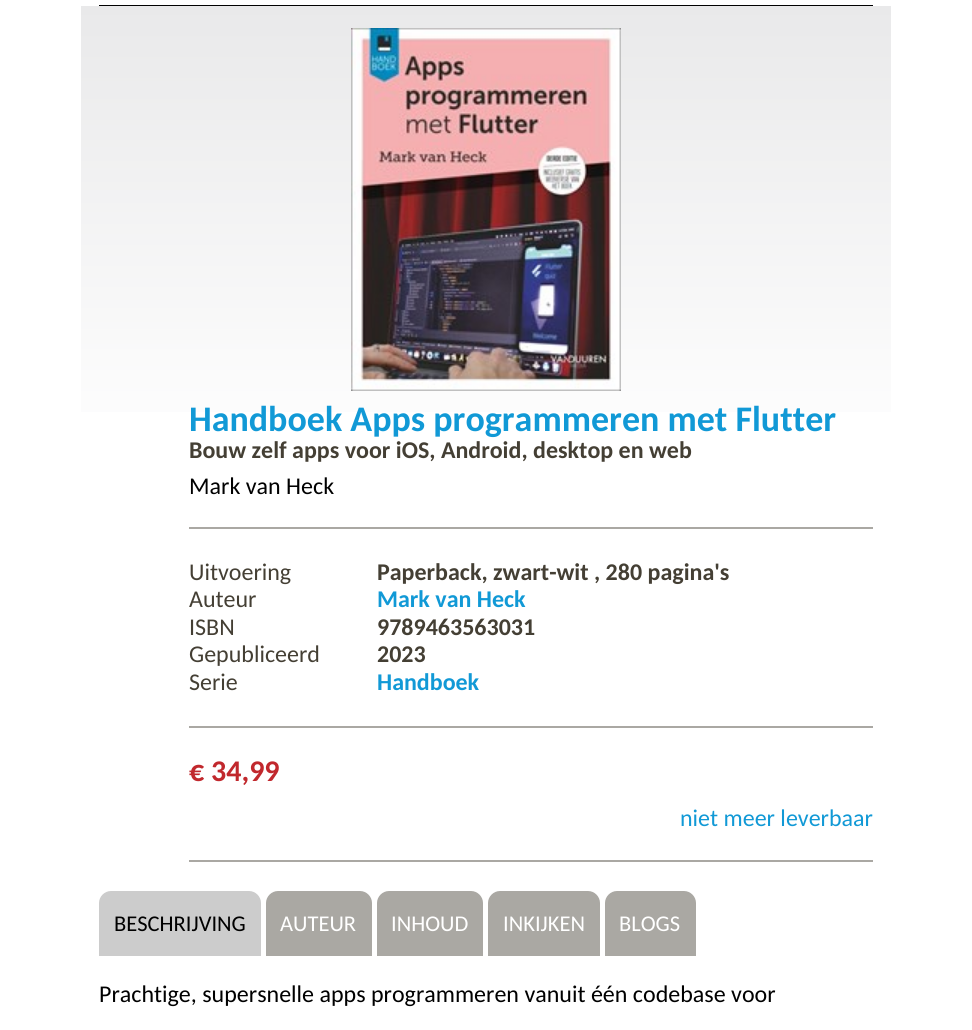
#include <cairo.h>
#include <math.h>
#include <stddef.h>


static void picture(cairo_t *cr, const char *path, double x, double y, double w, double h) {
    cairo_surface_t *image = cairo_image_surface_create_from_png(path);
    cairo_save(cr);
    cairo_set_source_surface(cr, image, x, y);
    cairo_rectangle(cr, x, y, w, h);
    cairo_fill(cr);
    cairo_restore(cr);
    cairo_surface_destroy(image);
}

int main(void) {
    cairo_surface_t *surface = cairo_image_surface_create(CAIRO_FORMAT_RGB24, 972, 1030);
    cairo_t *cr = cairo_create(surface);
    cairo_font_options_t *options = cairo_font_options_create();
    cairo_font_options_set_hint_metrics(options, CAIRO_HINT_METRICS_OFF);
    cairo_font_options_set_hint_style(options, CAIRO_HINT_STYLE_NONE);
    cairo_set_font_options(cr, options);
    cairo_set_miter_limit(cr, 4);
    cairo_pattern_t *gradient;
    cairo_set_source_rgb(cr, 1, 1, 1);
    cairo_paint(cr);
    cairo_set_source_rgb(cr, 0, 0, 0);
    cairo_rectangle(cr, 99, 5, 774, 1);
    cairo_fill(cr);
    gradient = cairo_pattern_create_linear(486, 6, 486, 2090);
    cairo_pattern_add_color_stop_rgba(gradient, 0, 0.914, 0.914, 0.918, 1);
    cairo_pattern_add_color_stop_rgba(gradient, 0.22, 1, 1, 1, 1);
    cairo_set_source(cr, gradient);
    cairo_pattern_destroy(gradient);
    cairo_rectangle(cr, 81, 6, 810, 406);
    cairo_fill(cr);
    picture(cr, "img1.png", 351, 28, 270, 363);
    cairo_select_font_face(cr, "Carlito", CAIRO_FONT_SLANT_NORMAL, CAIRO_FONT_WEIGHT_BOLD);
    cairo_set_font_size(cr, 36);
    cairo_set_source_rgb(cr, 0.067, 0.6, 0.839);
    cairo_move_to(cr, 189, 431);
    cairo_show_text(cr, "Handboek Apps programmeren met Flutter");
    cairo_set_font_size(cr, 24);
    cairo_set_source_rgb(cr, 0.267, 0.247, 0.204);
    cairo_move_to(cr, 189, 458);
    cairo_show_text(cr, "Bouw zelf apps voor iOS, Android, desktop en web");
    cairo_set_source_rgb(cr, 0.667, 0.659, 0.639);
    cairo_rectangle(cr, 189, 527, 684, 2);
    cairo_fill(cr);
    cairo_select_font_face(cr, "Carlito", CAIRO_FONT_SLANT_NORMAL, CAIRO_FONT_WEIGHT_NORMAL);
    cairo_set_source_rgb(cr, 0, 0, 0);
    cairo_move_to(cr, 189, 494);
    cairo_show_text(cr, "Mark van Heck");
    cairo_set_source_rgb(cr, 0.667, 0.659, 0.639);
    cairo_rectangle(cr, 189, 726, 684, 2);
    cairo_fill(cr);
    cairo_set_source_rgb(cr, 0.267, 0.247, 0.204);
    cairo_move_to(cr, 189, 580);
    cairo_show_text(cr, "Uitvoering");
    cairo_select_font_face(cr, "Carlito", CAIRO_FONT_SLANT_NORMAL, CAIRO_FONT_WEIGHT_BOLD);
    cairo_move_to(cr, 377, 580);
    cairo_show_text(cr, "Paperback, zwart-wit , 280 pagina's");
    cairo_select_font_face(cr, "Carlito", CAIRO_FONT_SLANT_NORMAL, CAIRO_FONT_WEIGHT_NORMAL);
    cairo_move_to(cr, 189, 607);
    cairo_show_text(cr, "Auteur");
    cairo_select_font_face(cr, "Carlito", CAIRO_FONT_SLANT_NORMAL, CAIRO_FONT_WEIGHT_BOLD);
    cairo_set_source_rgb(cr, 0.067, 0.6, 0.839);
    cairo_move_to(cr, 377, 607);
    cairo_show_text(cr, "Mark van Heck");
    cairo_select_font_face(cr, "Carlito", CAIRO_FONT_SLANT_NORMAL, CAIRO_FONT_WEIGHT_NORMAL);
    cairo_set_source_rgb(cr, 0.267, 0.247, 0.204);
    cairo_move_to(cr, 189, 635);
    cairo_show_text(cr, "ISBN");
    cairo_select_font_face(cr, "Carlito", CAIRO_FONT_SLANT_NORMAL, CAIRO_FONT_WEIGHT_BOLD);
    cairo_move_to(cr, 377, 635);
    cairo_show_text(cr, "9789463563031");
    cairo_select_font_face(cr, "Carlito", CAIRO_FONT_SLANT_NORMAL, CAIRO_FONT_WEIGHT_NORMAL);
    cairo_move_to(cr, 189, 662);
    cairo_show_text(cr, "Gepubliceerd");
    cairo_select_font_face(cr, "Carlito", CAIRO_FONT_SLANT_NORMAL, CAIRO_FONT_WEIGHT_BOLD);
    cairo_move_to(cr, 377, 662);
    cairo_show_text(cr, "2023");
    cairo_select_font_face(cr, "Carlito", CAIRO_FONT_SLANT_NORMAL, CAIRO_FONT_WEIGHT_NORMAL);
    cairo_move_to(cr, 189, 690);
    cairo_show_text(cr, "Serie");
    cairo_select_font_face(cr, "Carlito", CAIRO_FONT_SLANT_NORMAL, CAIRO_FONT_WEIGHT_BOLD);
    cairo_set_source_rgb(cr, 0.067, 0.6, 0.839);
    cairo_move_to(cr, 377, 690);
    cairo_show_text(cr, "Handboek");
    cairo_set_source_rgb(cr, 0.667, 0.659, 0.639);
    cairo_rectangle(cr, 189, 860, 684, 2);
    cairo_fill(cr);
    cairo_set_font_size(cr, 30);
    cairo_set_source_rgb(cr, 0.757, 0.157, 0.176);
    cairo_move_to(cr, 189, 781);
    cairo_show_text(cr, "€ 34,99");
    cairo_select_font_face(cr, "Carlito", CAIRO_FONT_SLANT_NORMAL, CAIRO_FONT_WEIGHT_NORMAL);
    cairo_set_font_size(cr, 24);
    cairo_set_source_rgb(cr, 0.067, 0.6, 0.839);
    cairo_move_to(cr, 680, 826);
    cairo_show_text(cr, "niet meer leverbaar");
    cairo_set_source_rgb(cr, 0.8, 0.8, 0.8);
    cairo_new_path(cr);
    cairo_move_to(cr, 111, 891);
    cairo_line_to(cr, 249, 891);
    cairo_curve_to(cr, 255.5, 891, 261, 896.5, 261, 903);
    cairo_line_to(cr, 261, 956);
    cairo_line_to(cr, 99, 956);
    cairo_line_to(cr, 99, 903);
    cairo_curve_to(cr, 99, 896.5, 104.5, 891, 111, 891);
    cairo_close_path(cr);
    cairo_fill(cr);
    cairo_set_font_size(cr, 22.5);
    cairo_set_source_rgb(cr, 0, 0, 0);
    cairo_move_to(cr, 114, 931);
    cairo_show_text(cr, "BESCHRIJVING");
    cairo_set_source_rgb(cr, 0.667, 0.659, 0.639);
    cairo_new_path(cr);
    cairo_move_to(cr, 278, 891);
    cairo_line_to(cr, 360, 891);
    cairo_curve_to(cr, 366.5, 891, 372, 896.5, 372, 903);
    cairo_line_to(cr, 372, 956);
    cairo_line_to(cr, 266, 956);
    cairo_line_to(cr, 266, 903);
    cairo_curve_to(cr, 266, 896.5, 271.5, 891, 278, 891);
    cairo_close_path(cr);
    cairo_fill(cr);
    cairo_set_source_rgb(cr, 1, 1, 1);
    cairo_move_to(cr, 280, 931);
    cairo_show_text(cr, "AUTEUR");
    cairo_set_source_rgb(cr, 0.667, 0.659, 0.639);
    cairo_new_path(cr);
    cairo_move_to(cr, 389, 891);
    cairo_line_to(cr, 471, 891);
    cairo_curve_to(cr, 477.5, 891, 483, 896.5, 483, 903);
    cairo_line_to(cr, 483, 956);
    cairo_line_to(cr, 377, 956);
    cairo_line_to(cr, 377, 903);
    cairo_curve_to(cr, 377, 896.5, 382.5, 891, 389, 891);
    cairo_close_path(cr);
    cairo_fill(cr);
    cairo_set_source_rgb(cr, 1, 1, 1);
    cairo_move_to(cr, 391, 931);
    cairo_show_text(cr, "INHOUD");
    cairo_set_source_rgb(cr, 0.667, 0.659, 0.639);
    cairo_new_path(cr);
    cairo_move_to(cr, 500, 891);
    cairo_line_to(cr, 588, 891);
    cairo_curve_to(cr, 594.5, 891, 600, 896.5, 600, 903);
    cairo_line_to(cr, 600, 956);
    cairo_line_to(cr, 488, 956);
    cairo_line_to(cr, 488, 903);
    cairo_curve_to(cr, 488, 896.5, 493.5, 891, 500, 891);
    cairo_close_path(cr);
    cairo_fill(cr);
    cairo_set_source_rgb(cr, 1, 1, 1);
    cairo_move_to(cr, 503, 931);
    cairo_show_text(cr, "INKIJKEN");
    cairo_set_source_rgb(cr, 0.667, 0.659, 0.639);
    cairo_new_path(cr);
    cairo_move_to(cr, 617, 891);
    cairo_line_to(cr, 684, 891);
    cairo_curve_to(cr, 690.5, 891, 696, 896.5, 696, 903);
    cairo_line_to(cr, 696, 956);
    cairo_line_to(cr, 605, 956);
    cairo_line_to(cr, 605, 903);
    cairo_curve_to(cr, 605, 896.5, 610.5, 891, 617, 891);
    cairo_close_path(cr);
    cairo_fill(cr);
    cairo_set_source_rgb(cr, 1, 1, 1);
    cairo_move_to(cr, 619, 931);
    cairo_show_text(cr, "BLOGS");
    cairo_set_font_size(cr, 24);
    cairo_set_source_rgb(cr, 0, 0, 0);
    cairo_move_to(cr, 99, 1002);
    cairo_show_text(cr, "Prachtige, supersnelle apps programmeren vanuit één codebase voor");
    cairo_surface_write_to_png(surface, "page.png");
    cairo_font_options_destroy(options);
    cairo_destroy(cr);
    cairo_surface_destroy(surface);
    return 0;
}
